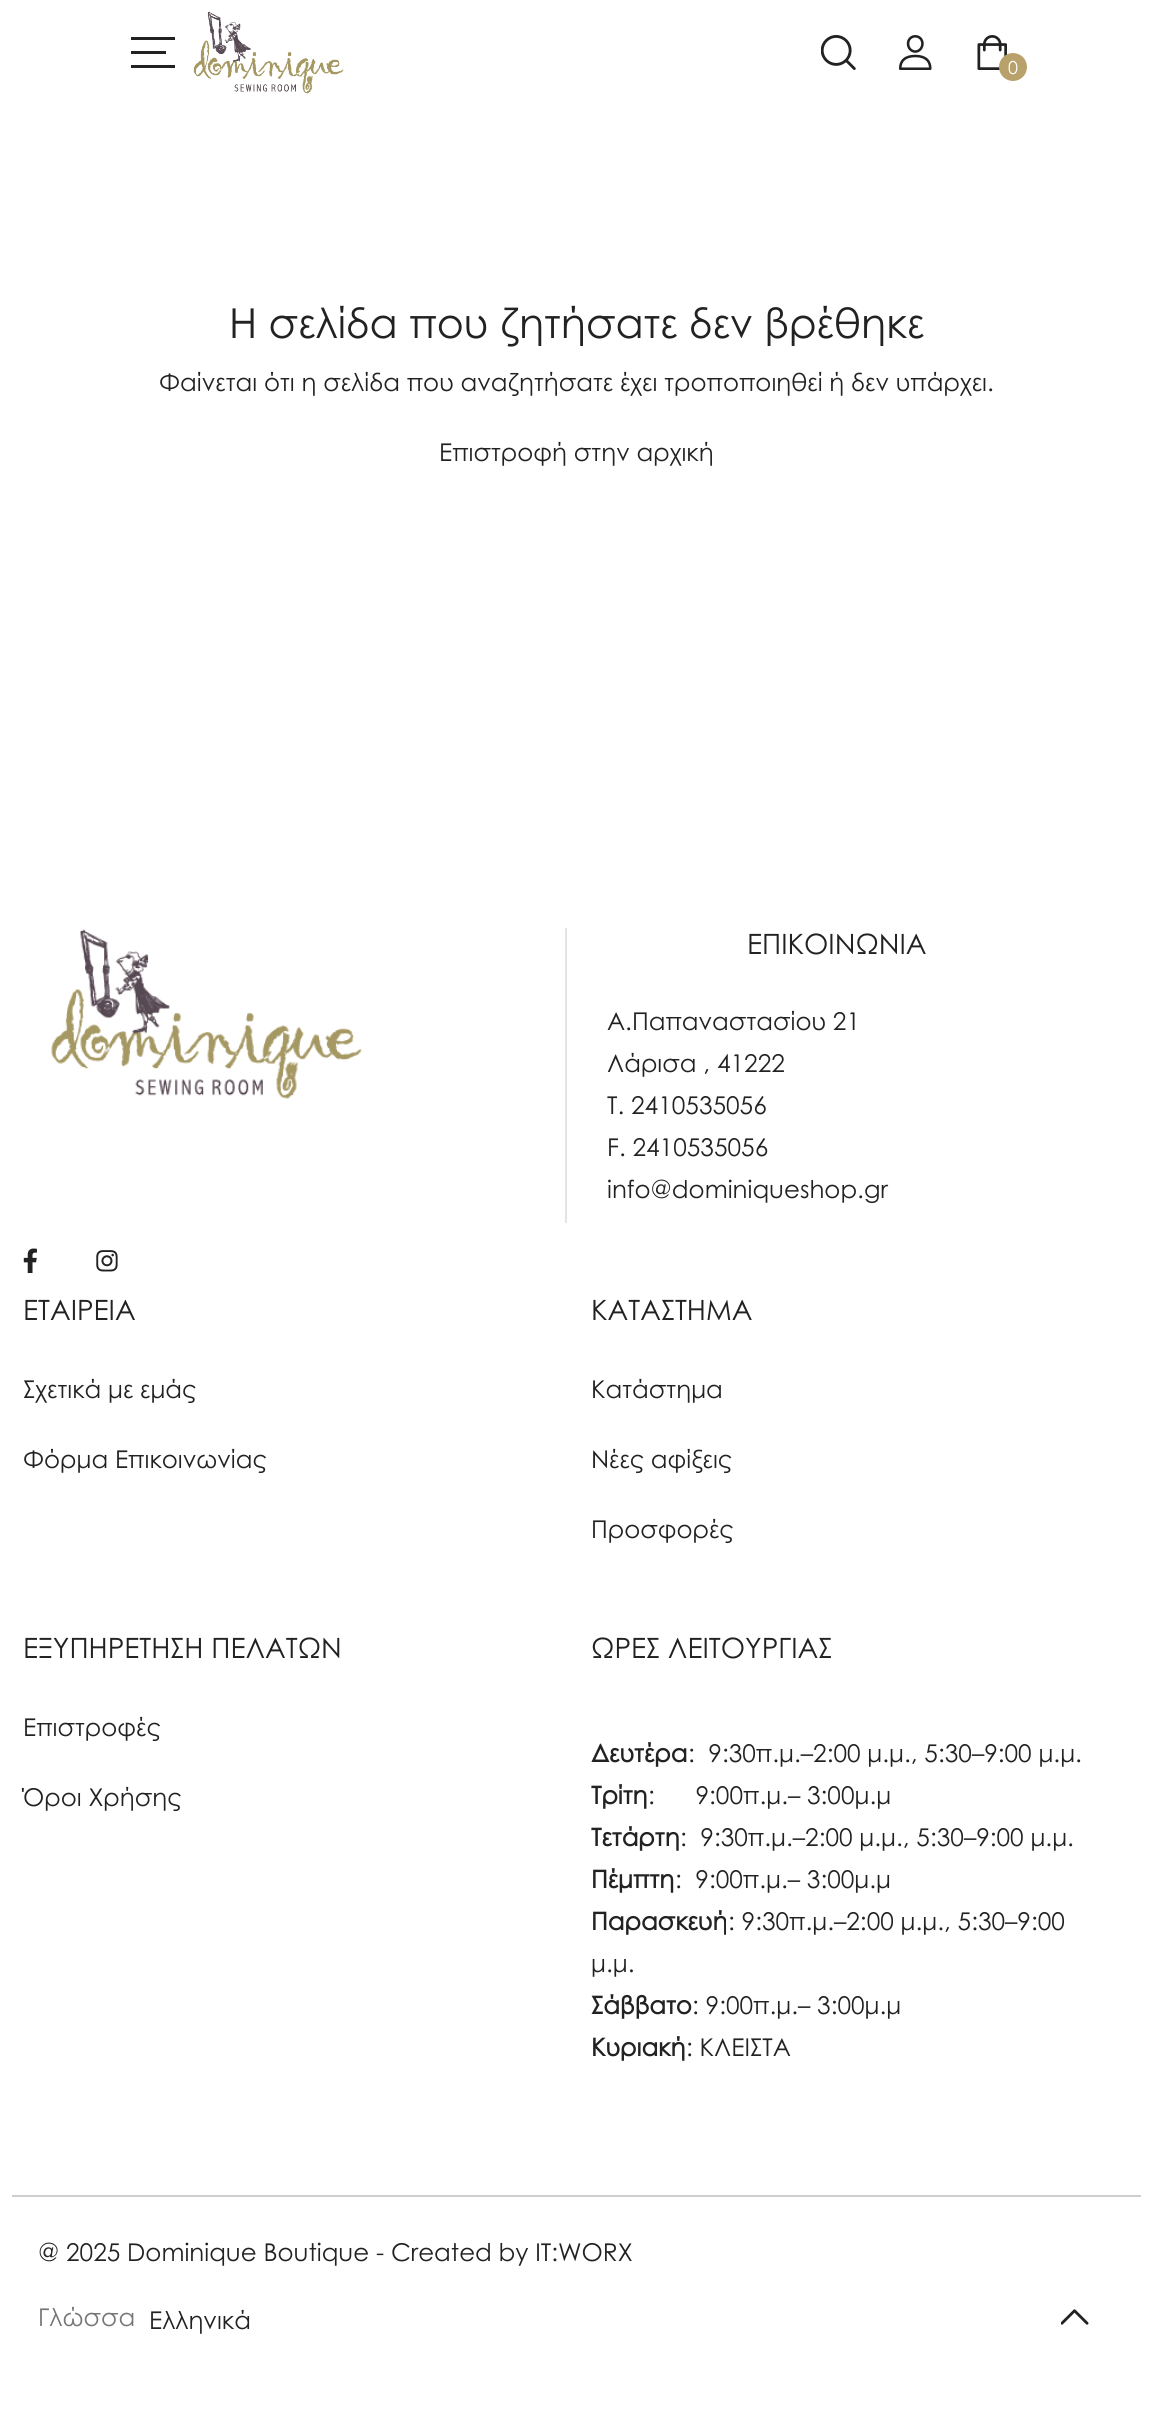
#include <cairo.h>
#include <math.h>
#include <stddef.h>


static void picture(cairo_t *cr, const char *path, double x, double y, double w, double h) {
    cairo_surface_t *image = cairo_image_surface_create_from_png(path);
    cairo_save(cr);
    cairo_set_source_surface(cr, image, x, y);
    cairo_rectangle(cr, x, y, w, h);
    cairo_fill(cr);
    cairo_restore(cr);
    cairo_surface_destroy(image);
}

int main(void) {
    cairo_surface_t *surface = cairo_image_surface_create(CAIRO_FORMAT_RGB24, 1153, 2413);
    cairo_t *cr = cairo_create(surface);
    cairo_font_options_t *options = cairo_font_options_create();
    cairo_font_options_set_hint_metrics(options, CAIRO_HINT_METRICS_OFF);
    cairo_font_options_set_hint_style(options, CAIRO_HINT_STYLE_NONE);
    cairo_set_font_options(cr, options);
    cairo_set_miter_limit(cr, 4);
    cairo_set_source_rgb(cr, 1, 1, 1);
    cairo_paint(cr);
    cairo_set_source_rgb(cr, 0.133, 0.133, 0.133);
    cairo_rectangle(cr, 131, 37, 44, 3);
    cairo_fill(cr);
    cairo_rectangle(cr, 131, 51, 35, 3);
    cairo_fill(cr);
    cairo_rectangle(cr, 131, 65, 44, 3);
    cairo_fill(cr);
    picture(cr, "img1.png", 193, 11, 151, 83);
    picture(cr, "img2.png", 821, 35, 35, 35);
    picture(cr, "img3.png", 898, 35, 34, 35);
    picture(cr, "img4.png", 977, 35, 30, 35);
    cairo_set_source_rgb(cr, 0.725, 0.631, 0.42);
    cairo_arc(cr, 1013, 67, 14, 0, 2 * M_PI);
    cairo_fill(cr);
    cairo_select_font_face(cr, "Century Gothic", CAIRO_FONT_SLANT_NORMAL, CAIRO_FONT_WEIGHT_NORMAL);
    cairo_set_font_size(cr, 18);
    cairo_set_source_rgb(cr, 1, 1, 1);
    cairo_move_to(cr, 1008, 74);
    cairo_show_text(cr, "0");
    cairo_set_font_size(cr, 41.25);
    cairo_set_source_rgb(cr, 0.133, 0.133, 0.133);
    cairo_move_to(cr, 229, 338);
    cairo_show_text(cr, "Η σελίδα που ζητήσατε δεν βρέθηκε");
    cairo_set_font_size(cr, 24.5);
    cairo_move_to(cr, 159, 391);
    cairo_show_text(cr, "Φαίνεται ότι η σελίδα που αναζητήσατε έχει τροποποιηθεί ή δεν υπάρχει.");
    cairo_move_to(cr, 439, 461);
    cairo_show_text(cr, "Επιστροφή στην αρχική");
    picture(cr, "img5.png", 51, 929, 311, 170);
    cairo_set_source_rgb(cr, 0.894, 0.894, 0.894);
    cairo_rectangle(cr, 565, 928, 2, 295);
    cairo_fill(cr);
    cairo_set_font_size(cr, 28);
    cairo_set_source_rgb(cr, 0.133, 0.133, 0.133);
    cairo_move_to(cr, 747, 954);
    cairo_show_text(cr, "ΕΠΙΚΟΙΝΩΝΙΑ");
    cairo_set_font_size(cr, 24.5);
    cairo_move_to(cr, 607, 1030);
    cairo_show_text(cr, "Α.Παπαναστασίου 21");
    cairo_move_to(cr, 607, 1072);
    cairo_show_text(cr, "Λάρισα , 41222");
    cairo_move_to(cr, 607, 1114);
    cairo_show_text(cr, "T. 2410535056");
    cairo_move_to(cr, 607, 1156);
    cairo_show_text(cr, "F. 2410535056");
    cairo_move_to(cr, 607, 1198);
    cairo_show_text(cr, "info@dominiqueshop.gr");
    picture(cr, "img6.png", 23, 1248, 14, 25);
    picture(cr, "img7.png", 96, 1250, 22, 22);
    cairo_set_font_size(cr, 28);
    cairo_move_to(cr, 23, 1320);
    cairo_show_text(cr, "ΕΤΑΙΡΕΙΑ");
    cairo_set_font_size(cr, 24.5);
    cairo_move_to(cr, 23, 1398);
    cairo_show_text(cr, "Σχετικά με εμάς");
    cairo_move_to(cr, 23, 1468);
    cairo_show_text(cr, "Φόρμα Επικοινωνίας");
    cairo_set_font_size(cr, 28);
    cairo_move_to(cr, 591, 1320);
    cairo_show_text(cr, "ΚΑΤΑΣΤΗΜΑ");
    cairo_set_font_size(cr, 24.5);
    cairo_move_to(cr, 591, 1398);
    cairo_show_text(cr, "Κατάστημα");
    cairo_move_to(cr, 591, 1468);
    cairo_show_text(cr, "Νέες αφίξεις");
    cairo_move_to(cr, 591, 1538);
    cairo_show_text(cr, "Προσφορές");
    cairo_set_font_size(cr, 28);
    cairo_move_to(cr, 23, 1658);
    cairo_show_text(cr, "ΕΞΥΠΗΡΕΤΗΣΗ ΠΕΛΑΤΩΝ");
    cairo_set_font_size(cr, 24.5);
    cairo_move_to(cr, 23, 1736);
    cairo_show_text(cr, "Επιστροφές");
    cairo_move_to(cr, 23, 1806);
    cairo_show_text(cr, "Όροι Χρήσης");
    cairo_set_font_size(cr, 28);
    cairo_move_to(cr, 591, 1658);
    cairo_show_text(cr, "ΩΡΕΣ ΛΕΙΤΟΥΡΓΙΑΣ");
    cairo_select_font_face(cr, "Century Gothic", CAIRO_FONT_SLANT_NORMAL, CAIRO_FONT_WEIGHT_BOLD);
    cairo_set_font_size(cr, 24.5);
    cairo_move_to(cr, 591, 1762);
    cairo_show_text(cr, "Δευτέρα");
    cairo_select_font_face(cr, "Century Gothic", CAIRO_FONT_SLANT_NORMAL, CAIRO_FONT_WEIGHT_NORMAL);
    cairo_move_to(cr, 688, 1762);
    cairo_show_text(cr, ":  9:30π.μ.–2:00 μ.μ., 5:30–9:00 μ.μ.");
    cairo_select_font_face(cr, "Century Gothic", CAIRO_FONT_SLANT_NORMAL, CAIRO_FONT_WEIGHT_BOLD);
    cairo_move_to(cr, 591, 1804);
    cairo_show_text(cr, "Τρίτη");
    cairo_select_font_face(cr, "Century Gothic", CAIRO_FONT_SLANT_NORMAL, CAIRO_FONT_WEIGHT_NORMAL);
    cairo_move_to(cr, 648, 1804);
    cairo_show_text(cr, ":      9:00π.μ.– 3:00μ.μ");
    cairo_select_font_face(cr, "Century Gothic", CAIRO_FONT_SLANT_NORMAL, CAIRO_FONT_WEIGHT_BOLD);
    cairo_move_to(cr, 591, 1846);
    cairo_show_text(cr, "Τετάρτη");
    cairo_select_font_face(cr, "Century Gothic", CAIRO_FONT_SLANT_NORMAL, CAIRO_FONT_WEIGHT_NORMAL);
    cairo_move_to(cr, 680, 1846);
    cairo_show_text(cr, ":  9:30π.μ.–2:00 μ.μ., 5:30–9:00 μ.μ.");
    cairo_select_font_face(cr, "Century Gothic", CAIRO_FONT_SLANT_NORMAL, CAIRO_FONT_WEIGHT_BOLD);
    cairo_move_to(cr, 591, 1888);
    cairo_show_text(cr, "Πέμπτη");
    cairo_select_font_face(cr, "Century Gothic", CAIRO_FONT_SLANT_NORMAL, CAIRO_FONT_WEIGHT_NORMAL);
    cairo_move_to(cr, 675, 1888);
    cairo_show_text(cr, ":  9:00π.μ.– 3:00μ.μ");
    cairo_select_font_face(cr, "Century Gothic", CAIRO_FONT_SLANT_NORMAL, CAIRO_FONT_WEIGHT_BOLD);
    cairo_move_to(cr, 591, 1930);
    cairo_show_text(cr, "Παρασκευή");
    cairo_select_font_face(cr, "Century Gothic", CAIRO_FONT_SLANT_NORMAL, CAIRO_FONT_WEIGHT_NORMAL);
    cairo_move_to(cr, 728, 1930);
    cairo_show_text(cr, ": 9:30π.μ.–2:00 μ.μ., 5:30–9:00");
    cairo_move_to(cr, 591, 1972);
    cairo_show_text(cr, "μ.μ.");
    cairo_select_font_face(cr, "Century Gothic", CAIRO_FONT_SLANT_NORMAL, CAIRO_FONT_WEIGHT_BOLD);
    cairo_move_to(cr, 591, 2014);
    cairo_show_text(cr, "Σάββατο");
    cairo_select_font_face(cr, "Century Gothic", CAIRO_FONT_SLANT_NORMAL, CAIRO_FONT_WEIGHT_NORMAL);
    cairo_move_to(cr, 692, 2014);
    cairo_show_text(cr, ": 9:00π.μ.– 3:00μ.μ");
    cairo_select_font_face(cr, "Century Gothic", CAIRO_FONT_SLANT_NORMAL, CAIRO_FONT_WEIGHT_BOLD);
    cairo_move_to(cr, 591, 2056);
    cairo_show_text(cr, "Κυριακή");
    cairo_select_font_face(cr, "Century Gothic", CAIRO_FONT_SLANT_NORMAL, CAIRO_FONT_WEIGHT_NORMAL);
    cairo_move_to(cr, 686, 2056);
    cairo_show_text(cr, ": ΚΛΕΙΣΤΑ");
    cairo_set_source_rgb(cr, 0.812, 0.804, 0.804);
    cairo_rectangle(cr, 12, 2195, 1129, 2);
    cairo_fill(cr);
    cairo_set_source_rgb(cr, 0.133, 0.133, 0.133);
    cairo_move_to(cr, 38, 2261);
    cairo_show_text(cr, "@ 2025 Dominique Boutique - Created by IT:WORX");
    cairo_set_source_rgb(cr, 0.463, 0.463, 0.463);
    cairo_move_to(cr, 38, 2326);
    cairo_show_text(cr, "Γλώσσα");
    picture(cr, "img8.png", 1061, 2309, 28, 16);
    cairo_set_source_rgb(cr, 0.133, 0.133, 0.133);
    cairo_move_to(cr, 149, 2329);
    cairo_show_text(cr, "Ελληνικά");
    cairo_surface_write_to_png(surface, "page.png");
    cairo_font_options_destroy(options);
    cairo_destroy(cr);
    cairo_surface_destroy(surface);
    return 0;
}
